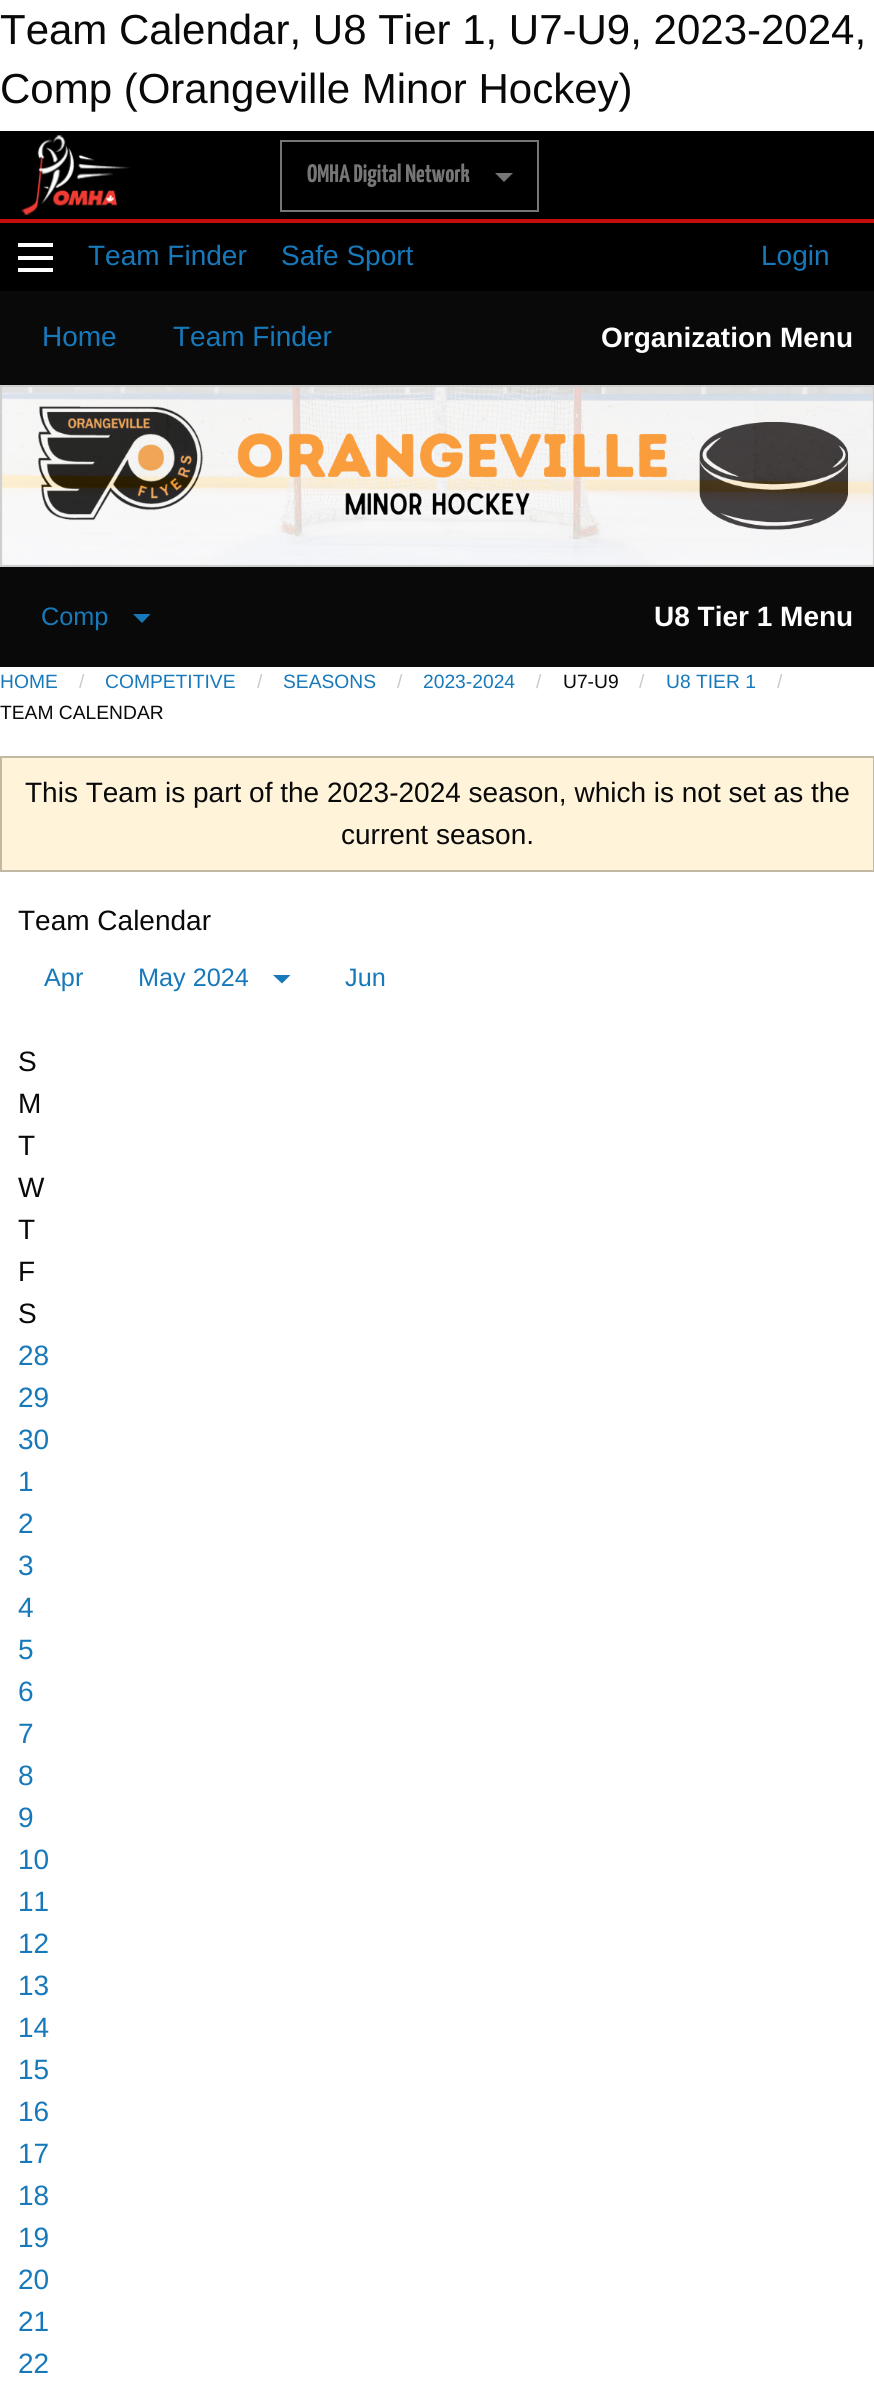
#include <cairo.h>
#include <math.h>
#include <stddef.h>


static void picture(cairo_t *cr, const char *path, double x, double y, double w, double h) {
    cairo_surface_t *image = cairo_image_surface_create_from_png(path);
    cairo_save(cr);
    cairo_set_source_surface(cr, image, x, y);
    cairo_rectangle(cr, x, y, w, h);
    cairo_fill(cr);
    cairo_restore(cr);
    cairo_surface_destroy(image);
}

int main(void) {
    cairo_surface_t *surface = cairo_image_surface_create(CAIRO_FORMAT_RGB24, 874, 2388);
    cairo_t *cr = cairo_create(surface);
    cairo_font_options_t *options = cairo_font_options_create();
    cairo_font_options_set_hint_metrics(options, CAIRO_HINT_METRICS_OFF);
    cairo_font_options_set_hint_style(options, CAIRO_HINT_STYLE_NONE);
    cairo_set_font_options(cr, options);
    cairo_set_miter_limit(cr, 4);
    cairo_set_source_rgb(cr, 1, 1, 1);
    cairo_paint(cr);
    cairo_select_font_face(cr, "Liberation Sans", CAIRO_FONT_SLANT_NORMAL, CAIRO_FONT_WEIGHT_NORMAL);
    cairo_set_font_size(cr, 42);
    cairo_set_source_rgb(cr, 0.039, 0.039, 0.039);
    cairo_move_to(cr, 0, 44);
    cairo_show_text(cr, "Team Calendar, U8 Tier 1, U7-U9, 2023-2024,");
    cairo_move_to(cr, 0, 103);
    cairo_show_text(cr, "Comp (Orangeville Minor Hockey)");
    cairo_set_source_rgb(cr, 0, 0, 0);
    cairo_rectangle(cr, 0, 131, 874, 88);
    cairo_fill(cr);
    cairo_set_source_rgb(cr, 0.776, 0.047, 0.047);
    cairo_rectangle(cr, 0, 219, 874, 4);
    cairo_fill(cr);
    picture(cr, "img1.png", 21, 135, 110, 80);
    cairo_rectangle(cr, 281, 141, 257, 70);
    cairo_set_source_rgb(cr, 0.463, 0.463, 0.463);
    cairo_stroke(cr);
    cairo_select_font_face(cr, "Yanone Kaffeesatz ExtraLight", CAIRO_FONT_SLANT_NORMAL, CAIRO_FONT_WEIGHT_NORMAL);
    cairo_set_font_size(cr, 25.25);
    cairo_move_to(cr, 307, 182);
    cairo_show_text(cr, "OMHA Digital Network");
    cairo_new_path(cr);
    cairo_move_to(cr, 495, 173);
    cairo_line_to(cr, 513, 173);
    cairo_line_to(cr, 504, 182);
    cairo_close_path(cr);
    cairo_fill(cr);
    cairo_set_source_rgb(cr, 0, 0, 0);
    cairo_rectangle(cr, 0, 223, 874, 68);
    cairo_fill(cr);
    cairo_set_source_rgb(cr, 0.996, 0.996, 0.996);
    cairo_rectangle(cr, 18, 268, 35, 4);
    cairo_fill(cr);
    cairo_rectangle(cr, 18, 256, 35, 4);
    cairo_fill(cr);
    cairo_rectangle(cr, 18, 243, 35, 4);
    cairo_fill(cr);
    cairo_select_font_face(cr, "Liberation Sans", CAIRO_FONT_SLANT_NORMAL, CAIRO_FONT_WEIGHT_NORMAL);
    cairo_set_font_size(cr, 28);
    cairo_set_source_rgb(cr, 0.09, 0.475, 0.729);
    cairo_move_to(cr, 88, 265);
    cairo_show_text(cr, "Team Finder");
    cairo_move_to(cr, 281, 265);
    cairo_show_text(cr, "Safe Sport");
    cairo_move_to(cr, 761, 265);
    cairo_show_text(cr, "Login");
    cairo_set_source_rgb(cr, 0.039, 0.039, 0.039);
    cairo_rectangle(cr, 0, 291, 874, 94);
    cairo_fill(cr);
    cairo_set_source_rgb(cr, 0.09, 0.475, 0.729);
    cairo_move_to(cr, 42, 346);
    cairo_show_text(cr, "Home");
    cairo_move_to(cr, 173, 346);
    cairo_show_text(cr, "Team Finder");
    cairo_select_font_face(cr, "Liberation Sans", CAIRO_FONT_SLANT_NORMAL, CAIRO_FONT_WEIGHT_BOLD);
    cairo_set_source_rgb(cr, 0.996, 0.996, 0.996);
    cairo_move_to(cr, 601, 347);
    cairo_show_text(cr, "Organization Menu");
    picture(cr, "img2.png", 0, 385, 874, 182);
    cairo_set_source_rgb(cr, 0.039, 0.039, 0.039);
    cairo_rectangle(cr, 0, 567, 874, 100);
    cairo_fill(cr);
    cairo_select_font_face(cr, "Liberation Sans", CAIRO_FONT_SLANT_NORMAL, CAIRO_FONT_WEIGHT_NORMAL);
    cairo_set_font_size(cr, 25.25);
    cairo_set_source_rgb(cr, 0.09, 0.475, 0.729);
    cairo_move_to(cr, 41, 625);
    cairo_show_text(cr, "Comp");
    cairo_new_path(cr);
    cairo_move_to(cr, 133, 614);
    cairo_line_to(cr, 150.5, 614);
    cairo_line_to(cr, 142, 623);
    cairo_close_path(cr);
    cairo_fill(cr);
    cairo_select_font_face(cr, "Liberation Sans", CAIRO_FONT_SLANT_NORMAL, CAIRO_FONT_WEIGHT_BOLD);
    cairo_set_font_size(cr, 28);
    cairo_set_source_rgb(cr, 0.996, 0.996, 0.996);
    cairo_move_to(cr, 654, 626);
    cairo_show_text(cr, "U8 Tier 1 Menu");
    cairo_select_font_face(cr, "Liberation Sans", CAIRO_FONT_SLANT_NORMAL, CAIRO_FONT_WEIGHT_NORMAL);
    cairo_set_font_size(cr, 19.25);
    cairo_set_source_rgb(cr, 0.09, 0.475, 0.729);
    cairo_move_to(cr, 0, 688);
    cairo_show_text(cr, "HOME");
    cairo_set_source_rgb(cr, 0.792, 0.792, 0.792);
    cairo_move_to(cr, 79, 688);
    cairo_show_text(cr, "/");
    cairo_set_source_rgb(cr, 0.09, 0.475, 0.729);
    cairo_move_to(cr, 105, 688);
    cairo_show_text(cr, "COMPETITIVE");
    cairo_set_source_rgb(cr, 0.792, 0.792, 0.792);
    cairo_move_to(cr, 257, 688);
    cairo_show_text(cr, "/");
    cairo_set_source_rgb(cr, 0.09, 0.475, 0.729);
    cairo_move_to(cr, 283, 688);
    cairo_show_text(cr, "SEASONS");
    cairo_set_source_rgb(cr, 0.792, 0.792, 0.792);
    cairo_move_to(cr, 397, 688);
    cairo_show_text(cr, "/");
    cairo_set_source_rgb(cr, 0.09, 0.475, 0.729);
    cairo_move_to(cr, 423, 688);
    cairo_show_text(cr, "2023-2024");
    cairo_set_source_rgb(cr, 0.792, 0.792, 0.792);
    cairo_move_to(cr, 536, 688);
    cairo_show_text(cr, "/");
    cairo_set_source_rgb(cr, 0.039, 0.039, 0.039);
    cairo_move_to(cr, 563, 688);
    cairo_show_text(cr, "U7-U9");
    cairo_set_source_rgb(cr, 0.792, 0.792, 0.792);
    cairo_move_to(cr, 639, 688);
    cairo_show_text(cr, "/");
    cairo_set_source_rgb(cr, 0.09, 0.475, 0.729);
    cairo_move_to(cr, 666, 688);
    cairo_show_text(cr, "U8 TIER 1");
    cairo_set_source_rgb(cr, 0.792, 0.792, 0.792);
    cairo_move_to(cr, 777, 688);
    cairo_show_text(cr, "/");
    cairo_set_source_rgb(cr, 0.039, 0.039, 0.039);
    cairo_move_to(cr, 0, 719);
    cairo_show_text(cr, "TEAM CALENDAR");
    cairo_set_source_rgb(cr, 1, 0.953, 0.851);
    cairo_rectangle(cr, 1, 757, 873, 114);
    cairo_fill_preserve(cr);
    cairo_set_source_rgb(cr, 0.761, 0.725, 0.647);
    cairo_stroke(cr);
    cairo_set_font_size(cr, 28);
    cairo_set_source_rgb(cr, 0.039, 0.039, 0.039);
    cairo_move_to(cr, 25, 802);
    cairo_show_text(cr, "This Team is part of the 2023-2024 season, which is not set as the");
    cairo_move_to(cr, 341, 844);
    cairo_show_text(cr, "current season.");
    cairo_move_to(cr, 18, 930);
    cairo_show_text(cr, "Team Calendar");
    cairo_set_font_size(cr, 25.25);
    cairo_set_source_rgb(cr, 0.09, 0.475, 0.729);
    cairo_move_to(cr, 44, 986);
    cairo_show_text(cr, "Apr");
    cairo_move_to(cr, 138, 986);
    cairo_show_text(cr, "May 2024");
    cairo_new_path(cr);
    cairo_move_to(cr, 273, 975);
    cairo_line_to(cr, 290.5, 975);
    cairo_line_to(cr, 282, 983.5);
    cairo_close_path(cr);
    cairo_fill(cr);
    cairo_move_to(cr, 345, 986);
    cairo_show_text(cr, "Jun");
    cairo_set_font_size(cr, 28);
    cairo_set_source_rgb(cr, 0.039, 0.039, 0.039);
    cairo_move_to(cr, 18, 1071);
    cairo_show_text(cr, "S");
    cairo_move_to(cr, 18, 1113);
    cairo_show_text(cr, "M");
    cairo_move_to(cr, 18, 1155);
    cairo_show_text(cr, "T");
    cairo_move_to(cr, 18, 1197);
    cairo_show_text(cr, "W");
    cairo_move_to(cr, 18, 1239);
    cairo_show_text(cr, "T");
    cairo_move_to(cr, 18, 1281);
    cairo_show_text(cr, "F");
    cairo_move_to(cr, 18, 1323);
    cairo_show_text(cr, "S");
    cairo_set_source_rgb(cr, 0.09, 0.475, 0.729);
    cairo_move_to(cr, 18, 1365);
    cairo_show_text(cr, "28");
    cairo_move_to(cr, 18, 1407);
    cairo_show_text(cr, "29");
    cairo_move_to(cr, 18, 1449);
    cairo_show_text(cr, "30");
    cairo_move_to(cr, 18, 1491);
    cairo_show_text(cr, "1");
    cairo_move_to(cr, 18, 1533);
    cairo_show_text(cr, "2");
    cairo_move_to(cr, 18, 1575);
    cairo_show_text(cr, "3");
    cairo_move_to(cr, 18, 1617);
    cairo_show_text(cr, "4");
    cairo_move_to(cr, 18, 1659);
    cairo_show_text(cr, "5");
    cairo_move_to(cr, 18, 1701);
    cairo_show_text(cr, "6");
    cairo_move_to(cr, 18, 1743);
    cairo_show_text(cr, "7");
    cairo_move_to(cr, 18, 1785);
    cairo_show_text(cr, "8");
    cairo_move_to(cr, 18, 1827);
    cairo_show_text(cr, "9");
    cairo_move_to(cr, 18, 1869);
    cairo_show_text(cr, "10");
    cairo_move_to(cr, 18, 1911);
    cairo_show_text(cr, "11");
    cairo_move_to(cr, 18, 1953);
    cairo_show_text(cr, "12");
    cairo_move_to(cr, 18, 1995);
    cairo_show_text(cr, "13");
    cairo_move_to(cr, 18, 2037);
    cairo_show_text(cr, "14");
    cairo_move_to(cr, 18, 2079);
    cairo_show_text(cr, "15");
    cairo_move_to(cr, 18, 2121);
    cairo_show_text(cr, "16");
    cairo_move_to(cr, 18, 2163);
    cairo_show_text(cr, "17");
    cairo_move_to(cr, 18, 2205);
    cairo_show_text(cr, "18");
    cairo_move_to(cr, 18, 2247);
    cairo_show_text(cr, "19");
    cairo_move_to(cr, 18, 2289);
    cairo_show_text(cr, "20");
    cairo_move_to(cr, 18, 2331);
    cairo_show_text(cr, "21");
    cairo_move_to(cr, 18, 2373);
    cairo_show_text(cr, "22");
    cairo_surface_write_to_png(surface, "page.png");
    cairo_font_options_destroy(options);
    cairo_destroy(cr);
    cairo_surface_destroy(surface);
    return 0;
}
